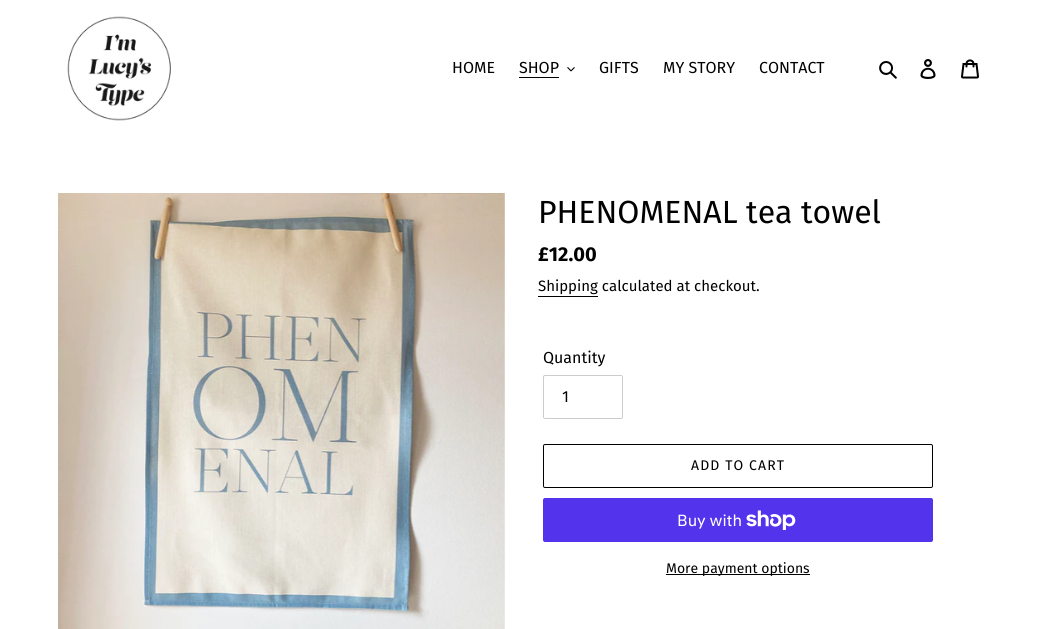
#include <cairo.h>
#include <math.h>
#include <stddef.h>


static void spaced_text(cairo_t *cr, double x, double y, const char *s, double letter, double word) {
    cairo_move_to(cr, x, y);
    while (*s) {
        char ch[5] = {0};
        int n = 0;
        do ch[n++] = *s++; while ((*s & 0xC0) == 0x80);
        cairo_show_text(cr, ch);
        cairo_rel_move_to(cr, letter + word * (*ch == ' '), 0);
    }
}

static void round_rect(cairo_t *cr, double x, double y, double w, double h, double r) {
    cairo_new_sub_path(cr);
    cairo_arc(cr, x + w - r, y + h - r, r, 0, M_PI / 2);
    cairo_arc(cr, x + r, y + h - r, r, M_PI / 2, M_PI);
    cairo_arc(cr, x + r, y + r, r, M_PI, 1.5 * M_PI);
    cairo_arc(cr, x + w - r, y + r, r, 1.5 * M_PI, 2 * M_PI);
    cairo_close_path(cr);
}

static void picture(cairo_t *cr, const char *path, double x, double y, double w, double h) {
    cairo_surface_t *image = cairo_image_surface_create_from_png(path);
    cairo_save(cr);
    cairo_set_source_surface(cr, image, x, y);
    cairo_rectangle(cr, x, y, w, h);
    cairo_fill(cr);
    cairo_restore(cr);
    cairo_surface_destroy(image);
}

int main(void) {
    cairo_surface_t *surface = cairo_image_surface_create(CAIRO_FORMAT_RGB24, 1046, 629);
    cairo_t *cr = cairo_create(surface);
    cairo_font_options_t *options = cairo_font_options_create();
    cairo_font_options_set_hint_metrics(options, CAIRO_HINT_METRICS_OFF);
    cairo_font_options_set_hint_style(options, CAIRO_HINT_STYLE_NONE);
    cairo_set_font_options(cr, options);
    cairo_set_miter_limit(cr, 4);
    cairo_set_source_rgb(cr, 1, 1, 1);
    cairo_paint(cr);
    picture(cr, "img1.png", 67, 16, 104, 105);
    cairo_select_font_face(cr, "Fira Sans", CAIRO_FONT_SLANT_NORMAL, CAIRO_FONT_WEIGHT_NORMAL);
    cairo_set_font_size(cr, 16);
    cairo_set_source_rgb(cr, 0, 0, 0);
    cairo_move_to(cr, 452, 73);
    cairo_show_text(cr, "HOME");
    cairo_move_to(cr, 519, 73);
    cairo_show_text(cr, "SHOP");
    cairo_rectangle(cr, 519, 77, 40, 1);
    cairo_fill(cr);
    picture(cr, "img2.png", 567, 67, 8, 5);
    cairo_move_to(cr, 599, 73);
    cairo_show_text(cr, "GIFTS");
    cairo_move_to(cr, 663, 73);
    cairo_show_text(cr, "MY STORY");
    cairo_move_to(cr, 759, 73);
    cairo_show_text(cr, "CONTACT");
    picture(cr, "img3.png", 879, 61, 18, 18);
    picture(cr, "img4.png", 920, 59, 16, 20);
    picture(cr, "img5.png", 961, 59, 18, 20);
    picture(cr, "img6.png", 58, 193, 447, 436);
    cairo_set_font_size(cr, 32);
    cairo_move_to(cr, 538, 223);
    cairo_show_text(cr, "PHENOMENAL tea towel");
    cairo_select_font_face(cr, "Fira Sans", CAIRO_FONT_SLANT_NORMAL, CAIRO_FONT_WEIGHT_BOLD);
    cairo_set_font_size(cr, 20);
    cairo_move_to(cr, 538, 261);
    cairo_show_text(cr, "£12.00");
    cairo_select_font_face(cr, "Fira Sans", CAIRO_FONT_SLANT_NORMAL, CAIRO_FONT_WEIGHT_NORMAL);
    cairo_set_font_size(cr, 15);
    cairo_move_to(cr, 538, 291);
    cairo_show_text(cr, "Shipping calculated at checkout.");
    cairo_rectangle(cr, 538, 296, 60, 1);
    cairo_fill(cr);
    cairo_set_font_size(cr, 16);
    cairo_move_to(cr, 543, 363);
    cairo_show_text(cr, "Quantity");
    round_rect(cr, 543.5, 375.5, 79, 43, 1.5);
    cairo_set_source_rgb(cr, 0.8, 0.8, 0.8);
    cairo_set_line_width(cr, 1);
    cairo_stroke(cr);
    cairo_set_source_rgb(cr, 0, 0, 0);
    cairo_move_to(cr, 562, 402);
    cairo_show_text(cr, "1");
    round_rect(cr, 543.5, 444.5, 389, 43, 1.5);
    cairo_stroke(cr);
    cairo_set_font_size(cr, 14);
    spaced_text(cr, 691, 470, "ADD TO CART", 1.1, 0);
    cairo_set_source_rgb(cr, 0.329, 0.2, 0.922);
    round_rect(cr, 543, 498, 390, 44, 2);
    cairo_fill(cr);
    cairo_select_font_face(cr, "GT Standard", CAIRO_FONT_SLANT_NORMAL, CAIRO_FONT_WEIGHT_NORMAL);
    cairo_set_font_size(cr, 16);
    cairo_set_source_rgb(cr, 1, 1, 1);
    cairo_move_to(cr, 677, 526);
    cairo_show_text(cr, "Buy with");
    picture(cr, "img7.png", 746, 510, 50, 20);
    cairo_set_source_rgb(cr, 0, 0, 0);
    cairo_rectangle(cr, 666, 574, 144, 1);
    cairo_fill(cr);
    cairo_select_font_face(cr, "Fira Sans", CAIRO_FONT_SLANT_NORMAL, CAIRO_FONT_WEIGHT_NORMAL);
    cairo_set_font_size(cr, 14);
    cairo_move_to(cr, 666, 573);
    cairo_show_text(cr, "More payment options");
    cairo_surface_write_to_png(surface, "page.png");
    cairo_font_options_destroy(options);
    cairo_destroy(cr);
    cairo_surface_destroy(surface);
    return 0;
}
